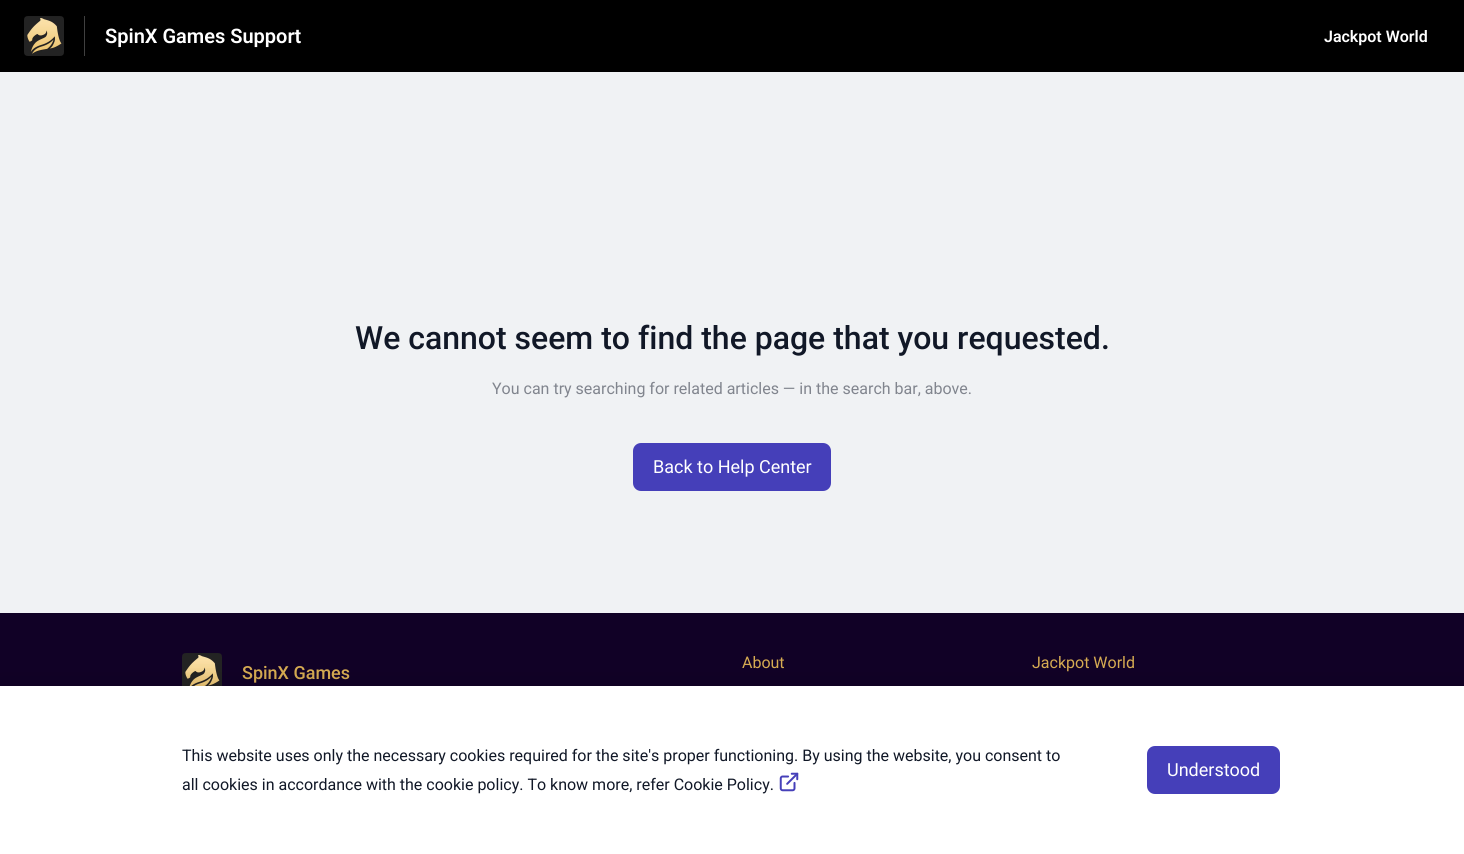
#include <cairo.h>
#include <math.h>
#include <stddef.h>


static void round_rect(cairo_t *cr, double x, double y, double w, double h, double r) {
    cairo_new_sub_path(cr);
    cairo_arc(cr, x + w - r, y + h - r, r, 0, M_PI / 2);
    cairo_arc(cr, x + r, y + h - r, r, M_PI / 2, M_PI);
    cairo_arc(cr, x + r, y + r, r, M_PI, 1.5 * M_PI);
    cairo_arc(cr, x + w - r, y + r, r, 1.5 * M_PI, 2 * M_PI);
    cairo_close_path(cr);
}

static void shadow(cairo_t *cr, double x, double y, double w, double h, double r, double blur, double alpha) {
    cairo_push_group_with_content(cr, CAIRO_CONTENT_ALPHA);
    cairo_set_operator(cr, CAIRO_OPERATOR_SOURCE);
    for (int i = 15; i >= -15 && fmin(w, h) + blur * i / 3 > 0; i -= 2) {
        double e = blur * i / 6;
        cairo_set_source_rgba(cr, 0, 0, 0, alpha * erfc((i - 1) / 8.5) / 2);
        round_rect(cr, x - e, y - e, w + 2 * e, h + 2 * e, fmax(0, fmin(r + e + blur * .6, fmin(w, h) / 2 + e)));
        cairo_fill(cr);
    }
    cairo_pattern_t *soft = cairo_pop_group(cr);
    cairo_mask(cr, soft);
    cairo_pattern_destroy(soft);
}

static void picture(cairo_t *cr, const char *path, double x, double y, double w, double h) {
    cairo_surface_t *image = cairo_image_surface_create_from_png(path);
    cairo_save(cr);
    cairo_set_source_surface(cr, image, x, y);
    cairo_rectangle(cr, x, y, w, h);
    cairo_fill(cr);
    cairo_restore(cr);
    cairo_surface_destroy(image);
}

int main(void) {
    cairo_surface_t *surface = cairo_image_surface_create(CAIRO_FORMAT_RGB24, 1464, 854);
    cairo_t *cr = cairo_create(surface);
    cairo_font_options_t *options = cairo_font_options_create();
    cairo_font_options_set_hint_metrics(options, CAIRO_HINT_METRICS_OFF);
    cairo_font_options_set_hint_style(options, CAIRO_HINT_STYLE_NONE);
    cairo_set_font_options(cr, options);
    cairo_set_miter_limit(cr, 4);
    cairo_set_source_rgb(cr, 0.941, 0.949, 0.957);
    cairo_paint(cr);
    cairo_set_source_rgb(cr, 0, 0, 0);
    cairo_rectangle(cr, 0, 0, 1464, 72);
    cairo_fill(cr);
    cairo_set_source_rgb(cr, 0.251, 0.251, 0.251);
    cairo_rectangle(cr, 84, 16, 1, 40);
    cairo_fill(cr);
    picture(cr, "img1.png", 24, 16, 40, 40);
    cairo_select_font_face(cr, "Roboto SemiBold", CAIRO_FONT_SLANT_NORMAL, CAIRO_FONT_WEIGHT_NORMAL);
    cairo_set_font_size(cr, 20);
    cairo_set_source_rgb(cr, 1, 1, 1);
    cairo_move_to(cr, 105, 43);
    cairo_show_text(cr, "SpinX Games Support");
    cairo_set_font_size(cr, 16);
    cairo_move_to(cr, 1324, 42);
    cairo_show_text(cr, "Jackpot World");
    cairo_select_font_face(cr, "Roboto Medium", CAIRO_FONT_SLANT_NORMAL, CAIRO_FONT_WEIGHT_NORMAL);
    cairo_set_font_size(cr, 32);
    cairo_set_source_rgb(cr, 0.067, 0.094, 0.153);
    cairo_move_to(cr, 355, 349);
    cairo_show_text(cr, "We cannot seem to find the page that you requested.");
    cairo_select_font_face(cr, "Roboto", CAIRO_FONT_SLANT_NORMAL, CAIRO_FONT_WEIGHT_NORMAL);
    cairo_set_font_size(cr, 16);
    cairo_set_source_rgb(cr, 0.506, 0.522, 0.557);
    cairo_move_to(cr, 492, 394);
    cairo_show_text(cr, "You can try searching for related articles — in the search bar, above.");
    cairo_set_source_rgb(cr, 0.271, 0.247, 0.725);
    round_rect(cr, 633, 443, 198, 48, 8);
    cairo_fill(cr);
    cairo_set_font_size(cr, 18);
    cairo_set_source_rgb(cr, 1, 1, 1);
    cairo_move_to(cr, 653, 473);
    cairo_show_text(cr, "Back to Help Center");
    cairo_set_source_rgb(cr, 0.067, 0.004, 0.149);
    cairo_rectangle(cr, 0, 613, 1464, 73);
    cairo_fill(cr);
    picture(cr, "img2.png", 182, 653, 40, 33);
    cairo_select_font_face(cr, "Roboto Medium", CAIRO_FONT_SLANT_NORMAL, CAIRO_FONT_WEIGHT_NORMAL);
    cairo_set_source_rgb(cr, 0.843, 0.675, 0.322);
    cairo_move_to(cr, 242, 679);
    cairo_show_text(cr, "SpinX Games");
    cairo_select_font_face(cr, "Roboto", CAIRO_FONT_SLANT_NORMAL, CAIRO_FONT_WEIGHT_NORMAL);
    cairo_set_font_size(cr, 16);
    cairo_move_to(cr, 742, 668);
    cairo_show_text(cr, "About");
    cairo_move_to(cr, 1032, 668);
    cairo_show_text(cr, "Jackpot World");
    cairo_set_source_rgb(cr, 0, 0, 0);
    shadow(cr, 0, 686, 1464, 168, 0, 12, 0.16);
    cairo_set_source_rgb(cr, 1, 1, 1);
    cairo_rectangle(cr, 0, 686, 1464, 168);
    cairo_fill(cr);
    cairo_set_source_rgb(cr, 0.067, 0.094, 0.153);
    cairo_move_to(cr, 182, 761);
    cairo_show_text(cr, "This website uses only the necessary cookies required for the site's proper functioning. By using the website, you consent to");
    cairo_move_to(cr, 182, 790);
    cairo_show_text(cr, "all cookies in accordance with the cookie policy. To know more, refer Cookie Policy.");
    picture(cr, "img3.png", 779, 772, 20, 20);
    cairo_set_source_rgb(cr, 0.271, 0.247, 0.725);
    round_rect(cr, 1147, 746, 133, 48, 8);
    cairo_fill(cr);
    cairo_set_font_size(cr, 18);
    cairo_set_source_rgb(cr, 1, 1, 1);
    cairo_move_to(cr, 1167, 776);
    cairo_show_text(cr, "Understood");
    cairo_surface_write_to_png(surface, "page.png");
    cairo_font_options_destroy(options);
    cairo_destroy(cr);
    cairo_surface_destroy(surface);
    return 0;
}
